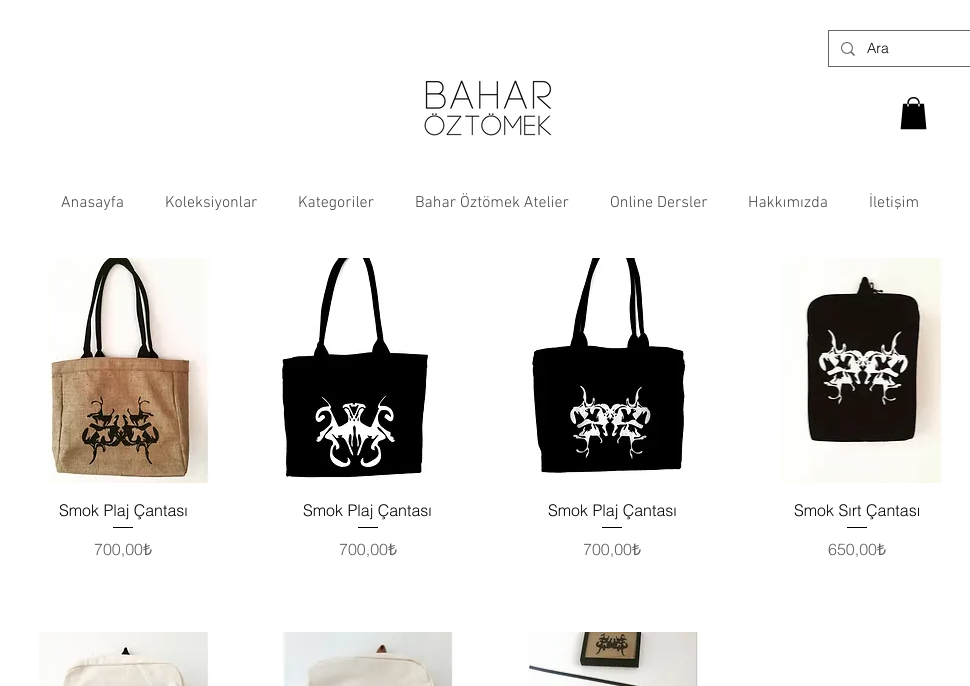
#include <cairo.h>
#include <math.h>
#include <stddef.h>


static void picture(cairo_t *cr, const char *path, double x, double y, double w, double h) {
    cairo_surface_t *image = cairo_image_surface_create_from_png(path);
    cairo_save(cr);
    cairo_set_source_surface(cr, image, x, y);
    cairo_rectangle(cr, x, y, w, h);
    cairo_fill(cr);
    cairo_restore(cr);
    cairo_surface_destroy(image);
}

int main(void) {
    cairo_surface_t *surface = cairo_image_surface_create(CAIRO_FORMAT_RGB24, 970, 686);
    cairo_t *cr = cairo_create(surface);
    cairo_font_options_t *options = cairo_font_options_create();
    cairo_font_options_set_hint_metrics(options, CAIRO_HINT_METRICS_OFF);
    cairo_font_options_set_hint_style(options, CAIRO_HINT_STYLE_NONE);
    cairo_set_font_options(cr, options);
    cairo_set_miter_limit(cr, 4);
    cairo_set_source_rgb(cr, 1, 1, 1);
    cairo_paint(cr);
    cairo_rectangle(cr, 828.5, 30.5, 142, 36);
    cairo_set_source_rgb(cr, 0.4, 0.4, 0.4);
    cairo_set_line_width(cr, 1);
    cairo_stroke(cr);
    picture(cr, "img1.png", 841, 42, 14, 14);
    cairo_select_font_face(cr, "helvetica Light", CAIRO_FONT_SLANT_NORMAL, CAIRO_FONT_WEIGHT_NORMAL);
    cairo_set_font_size(cr, 14);
    cairo_set_source_rgb(cr, 0, 0, 0);
    cairo_move_to(cr, 867, 53);
    cairo_show_text(cr, "Ara");
    picture(cr, "img2.png", 424, 80, 128, 56);
    picture(cr, "img3.png", 900, 97, 27, 33);
    cairo_select_font_face(cr, "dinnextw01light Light", CAIRO_FONT_SLANT_NORMAL, CAIRO_FONT_WEIGHT_NORMAL);
    cairo_set_font_size(cr, 16);
    cairo_set_source_rgb(cr, 0.267, 0.267, 0.267);
    cairo_move_to(cr, 61, 207);
    cairo_show_text(cr, "Anasayfa");
    cairo_move_to(cr, 165, 207);
    cairo_show_text(cr, "Koleksiyonlar");
    cairo_move_to(cr, 298, 207);
    cairo_show_text(cr, "Kategoriler");
    cairo_move_to(cr, 415, 207);
    cairo_show_text(cr, "Bahar Öztömek Atelier");
    cairo_move_to(cr, 610, 207);
    cairo_show_text(cr, "Online Dersler");
    cairo_move_to(cr, 748, 207);
    cairo_show_text(cr, "Hakkımızda");
    cairo_move_to(cr, 869, 207);
    cairo_show_text(cr, "İletişim");
    picture(cr, "img4.png", 47, 258, 164, 225);
    cairo_select_font_face(cr, "helvetica Light", CAIRO_FONT_SLANT_NORMAL, CAIRO_FONT_WEIGHT_NORMAL);
    cairo_set_source_rgb(cr, 0, 0, 0);
    cairo_move_to(cr, 59, 516);
    cairo_show_text(cr, "Smok Plaj Çantası");
    cairo_rectangle(cr, 113, 527, 20, 1);
    cairo_fill(cr);
    cairo_set_source_rgb(cr, 0.38, 0.376, 0.376);
    cairo_move_to(cr, 94, 555);
    cairo_show_text(cr, "700,00");
    cairo_select_font_face(cr, "Noto Sans", CAIRO_FONT_SLANT_NORMAL, CAIRO_FONT_WEIGHT_NORMAL);
    cairo_move_to(cr, 143, 555);
    cairo_show_text(cr, "₺");
    picture(cr, "img5.png", 280, 258, 148, 220);
    cairo_select_font_face(cr, "helvetica Light", CAIRO_FONT_SLANT_NORMAL, CAIRO_FONT_WEIGHT_NORMAL);
    cairo_set_source_rgb(cr, 0, 0, 0);
    cairo_move_to(cr, 303, 516);
    cairo_show_text(cr, "Smok Plaj Çantası");
    cairo_rectangle(cr, 358, 527, 20, 1);
    cairo_fill(cr);
    cairo_set_source_rgb(cr, 0.38, 0.376, 0.376);
    cairo_move_to(cr, 339, 555);
    cairo_show_text(cr, "700,00");
    cairo_select_font_face(cr, "Noto Sans", CAIRO_FONT_SLANT_NORMAL, CAIRO_FONT_WEIGHT_NORMAL);
    cairo_move_to(cr, 388, 555);
    cairo_show_text(cr, "₺");
    picture(cr, "img6.png", 532, 258, 156, 216);
    cairo_select_font_face(cr, "helvetica Light", CAIRO_FONT_SLANT_NORMAL, CAIRO_FONT_WEIGHT_NORMAL);
    cairo_set_source_rgb(cr, 0, 0, 0);
    cairo_move_to(cr, 548, 516);
    cairo_show_text(cr, "Smok Plaj Çantası");
    cairo_rectangle(cr, 602, 527, 20, 1);
    cairo_fill(cr);
    cairo_set_source_rgb(cr, 0.38, 0.376, 0.376);
    cairo_move_to(cr, 583, 555);
    cairo_show_text(cr, "700,00");
    cairo_select_font_face(cr, "Noto Sans", CAIRO_FONT_SLANT_NORMAL, CAIRO_FONT_WEIGHT_NORMAL);
    cairo_move_to(cr, 632, 555);
    cairo_show_text(cr, "₺");
    picture(cr, "img7.png", 780, 258, 164, 225);
    cairo_select_font_face(cr, "helvetica Light", CAIRO_FONT_SLANT_NORMAL, CAIRO_FONT_WEIGHT_NORMAL);
    cairo_set_source_rgb(cr, 0, 0, 0);
    cairo_move_to(cr, 794, 516);
    cairo_show_text(cr, "Smok Sırt Çantası");
    cairo_rectangle(cr, 847, 527, 20, 1);
    cairo_fill(cr);
    cairo_set_source_rgb(cr, 0.38, 0.376, 0.376);
    cairo_move_to(cr, 828, 555);
    cairo_show_text(cr, "650,00");
    cairo_select_font_face(cr, "Noto Sans", CAIRO_FONT_SLANT_NORMAL, CAIRO_FONT_WEIGHT_NORMAL);
    cairo_move_to(cr, 877, 555);
    cairo_show_text(cr, "₺");
    picture(cr, "img8.png", 39, 632, 171, 54);
    picture(cr, "img9.png", 282, 632, 173, 54);
    picture(cr, "img10.png", 528, 632, 172, 54);
    cairo_surface_write_to_png(surface, "page.png");
    cairo_font_options_destroy(options);
    cairo_destroy(cr);
    cairo_surface_destroy(surface);
    return 0;
}
